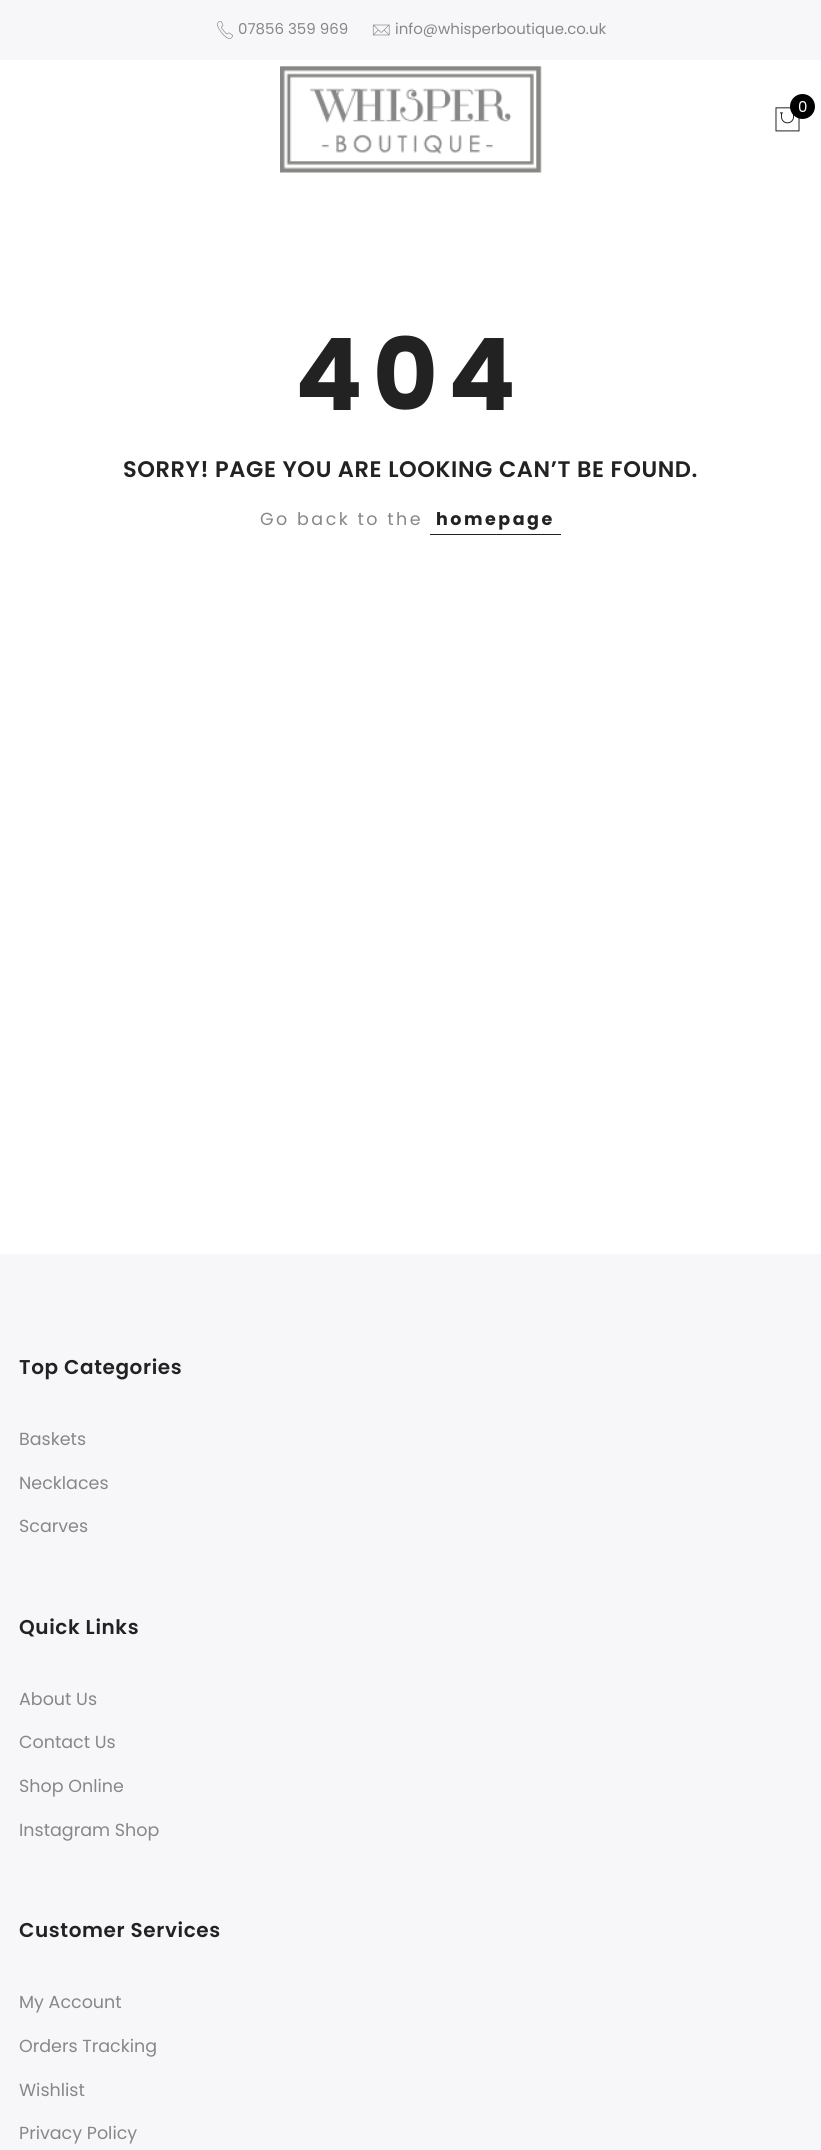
#include <cairo.h>
#include <math.h>
#include <stddef.h>


static void spaced_text(cairo_t *cr, double x, double y, const char *s, double letter, double word) {
    cairo_move_to(cr, x, y);
    while (*s) {
        char ch[5] = {0};
        int n = 0;
        do ch[n++] = *s++; while ((*s & 0xC0) == 0x80);
        cairo_show_text(cr, ch);
        cairo_rel_move_to(cr, letter + word * (*ch == ' '), 0);
    }
}

static void picture(cairo_t *cr, const char *path, double x, double y, double w, double h) {
    cairo_surface_t *image = cairo_image_surface_create_from_png(path);
    cairo_save(cr);
    cairo_set_source_surface(cr, image, x, y);
    cairo_rectangle(cr, x, y, w, h);
    cairo_fill(cr);
    cairo_restore(cr);
    cairo_surface_destroy(image);
}

int main(void) {
    cairo_surface_t *surface = cairo_image_surface_create(CAIRO_FORMAT_RGB24, 821, 2150);
    cairo_t *cr = cairo_create(surface);
    cairo_font_options_t *options = cairo_font_options_create();
    cairo_font_options_set_hint_metrics(options, CAIRO_HINT_METRICS_OFF);
    cairo_font_options_set_hint_style(options, CAIRO_HINT_STYLE_NONE);
    cairo_set_font_options(cr, options);
    cairo_set_miter_limit(cr, 4);
    cairo_set_source_rgb(cr, 1, 1, 1);
    cairo_paint(cr);
    cairo_set_source_rgb(cr, 0.965, 0.965, 0.973);
    cairo_rectangle(cr, 0, 0, 821, 60);
    cairo_fill(cr);
    picture(cr, "img1.png", 217, 21, 16, 18);
    cairo_select_font_face(cr, "Poppins", CAIRO_FONT_SLANT_NORMAL, CAIRO_FONT_WEIGHT_NORMAL);
    cairo_set_font_size(cr, 15);
    cairo_set_source_rgb(cr, 0.529, 0.529, 0.529);
    cairo_move_to(cr, 238, 34);
    cairo_show_text(cr, "07856 359 969");
    picture(cr, "img2.png", 372, 24, 18, 12);
    cairo_move_to(cr, 395, 34);
    cairo_show_text(cr, "info@whisperboutique.co.uk");
    picture(cr, "img3.png", 280, 66, 262, 107);
    picture(cr, "img4.png", 775, 107, 25, 25);
    cairo_set_source_rgb(cr, 0, 0, 0);
    cairo_arc(cr, 802.5, 106.5, 12.5, 0, 2 * M_PI);
    cairo_fill(cr);
    cairo_set_source_rgb(cr, 1, 1, 1);
    cairo_move_to(cr, 798, 112);
    cairo_show_text(cr, "0");
    cairo_select_font_face(cr, "Poppins", CAIRO_FONT_SLANT_NORMAL, CAIRO_FONT_WEIGHT_BOLD);
    cairo_set_font_size(cr, 100);
    cairo_set_source_rgb(cr, 0.133, 0.133, 0.133);
    spaced_text(cr, 295, 410, "404", 10, 0);
    cairo_select_font_face(cr, "Poppins SemiBold", CAIRO_FONT_SLANT_NORMAL, CAIRO_FONT_WEIGHT_NORMAL);
    cairo_set_font_size(cr, 22.5);
    spaced_text(cr, 123, 477, "SORRY! PAGE YOU ARE LOOKING CAN’T BE FOUND.", 0.6, 0);
    cairo_select_font_face(cr, "Poppins", CAIRO_FONT_SLANT_NORMAL, CAIRO_FONT_WEIGHT_NORMAL);
    cairo_set_font_size(cr, 17.5);
    cairo_set_source_rgb(cr, 0.529, 0.529, 0.529);
    spaced_text(cr, 260, 525, "Go back to the", 2.5, 0);
    cairo_select_font_face(cr, "Poppins", CAIRO_FONT_SLANT_NORMAL, CAIRO_FONT_WEIGHT_BOLD);
    cairo_set_source_rgb(cr, 0.133, 0.133, 0.133);
    spaced_text(cr, 436, 525, "homepage", 2.5, 0);
    cairo_rectangle(cr, 430, 534, 131, 1);
    cairo_fill(cr);
    cairo_set_source_rgb(cr, 0.965, 0.965, 0.973);
    cairo_rectangle(cr, 0, 1254, 821, 896);
    cairo_fill(cr);
    cairo_select_font_face(cr, "Poppins SemiBold", CAIRO_FONT_SLANT_NORMAL, CAIRO_FONT_WEIGHT_NORMAL);
    cairo_set_font_size(cr, 20);
    cairo_set_source_rgb(cr, 0.133, 0.133, 0.133);
    spaced_text(cr, 19, 1374, "Top Categories", 0.6, 0);
    cairo_select_font_face(cr, "Poppins", CAIRO_FONT_SLANT_NORMAL, CAIRO_FONT_WEIGHT_NORMAL);
    cairo_set_font_size(cr, 17.5);
    cairo_set_source_rgb(cr, 0.529, 0.529, 0.529);
    cairo_move_to(cr, 19, 1445);
    cairo_show_text(cr, "Baskets");
    cairo_move_to(cr, 19, 1489);
    cairo_show_text(cr, "Necklaces");
    cairo_move_to(cr, 19, 1532);
    cairo_show_text(cr, "Scarves");
    cairo_select_font_face(cr, "Poppins SemiBold", CAIRO_FONT_SLANT_NORMAL, CAIRO_FONT_WEIGHT_NORMAL);
    cairo_set_font_size(cr, 20);
    cairo_set_source_rgb(cr, 0.133, 0.133, 0.133);
    spaced_text(cr, 19, 1634, "Quick Links", 0.6, 0);
    cairo_select_font_face(cr, "Poppins", CAIRO_FONT_SLANT_NORMAL, CAIRO_FONT_WEIGHT_NORMAL);
    cairo_set_font_size(cr, 17.5);
    cairo_set_source_rgb(cr, 0.529, 0.529, 0.529);
    cairo_move_to(cr, 19, 1705);
    cairo_show_text(cr, "About Us");
    cairo_move_to(cr, 19, 1748);
    cairo_show_text(cr, "Contact Us");
    cairo_move_to(cr, 19, 1792);
    cairo_show_text(cr, "Shop Online");
    cairo_move_to(cr, 19, 1836);
    cairo_show_text(cr, "Instagram Shop");
    cairo_select_font_face(cr, "Poppins SemiBold", CAIRO_FONT_SLANT_NORMAL, CAIRO_FONT_WEIGHT_NORMAL);
    cairo_set_font_size(cr, 20);
    cairo_set_source_rgb(cr, 0.133, 0.133, 0.133);
    spaced_text(cr, 19, 1937, "Customer Services", 0.6, 0);
    cairo_select_font_face(cr, "Poppins", CAIRO_FONT_SLANT_NORMAL, CAIRO_FONT_WEIGHT_NORMAL);
    cairo_set_font_size(cr, 17.5);
    cairo_set_source_rgb(cr, 0.529, 0.529, 0.529);
    cairo_move_to(cr, 19, 2008);
    cairo_show_text(cr, "My Account");
    cairo_move_to(cr, 19, 2052);
    cairo_show_text(cr, "Orders Tracking");
    cairo_move_to(cr, 19, 2096);
    cairo_show_text(cr, "Wishlist");
    cairo_move_to(cr, 19, 2139);
    cairo_show_text(cr, "Privacy Policy");
    cairo_surface_write_to_png(surface, "page.png");
    cairo_font_options_destroy(options);
    cairo_destroy(cr);
    cairo_surface_destroy(surface);
    return 0;
}
